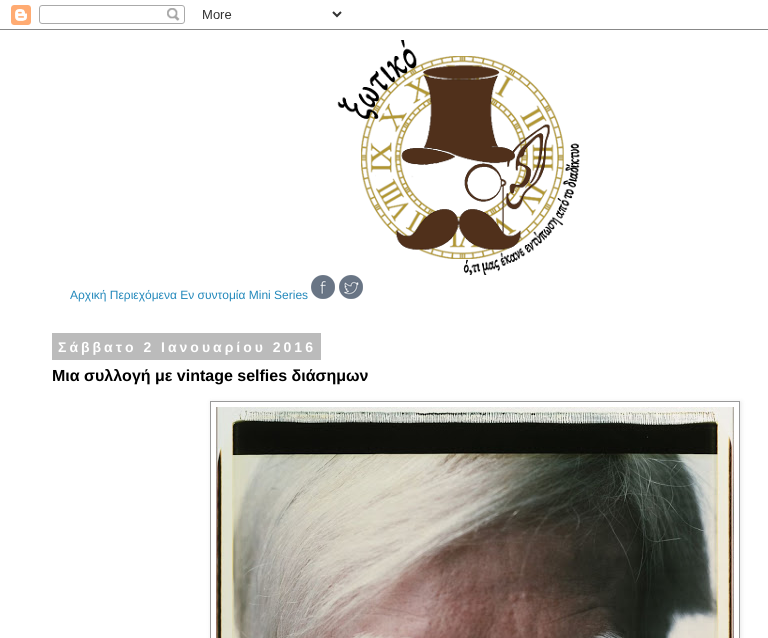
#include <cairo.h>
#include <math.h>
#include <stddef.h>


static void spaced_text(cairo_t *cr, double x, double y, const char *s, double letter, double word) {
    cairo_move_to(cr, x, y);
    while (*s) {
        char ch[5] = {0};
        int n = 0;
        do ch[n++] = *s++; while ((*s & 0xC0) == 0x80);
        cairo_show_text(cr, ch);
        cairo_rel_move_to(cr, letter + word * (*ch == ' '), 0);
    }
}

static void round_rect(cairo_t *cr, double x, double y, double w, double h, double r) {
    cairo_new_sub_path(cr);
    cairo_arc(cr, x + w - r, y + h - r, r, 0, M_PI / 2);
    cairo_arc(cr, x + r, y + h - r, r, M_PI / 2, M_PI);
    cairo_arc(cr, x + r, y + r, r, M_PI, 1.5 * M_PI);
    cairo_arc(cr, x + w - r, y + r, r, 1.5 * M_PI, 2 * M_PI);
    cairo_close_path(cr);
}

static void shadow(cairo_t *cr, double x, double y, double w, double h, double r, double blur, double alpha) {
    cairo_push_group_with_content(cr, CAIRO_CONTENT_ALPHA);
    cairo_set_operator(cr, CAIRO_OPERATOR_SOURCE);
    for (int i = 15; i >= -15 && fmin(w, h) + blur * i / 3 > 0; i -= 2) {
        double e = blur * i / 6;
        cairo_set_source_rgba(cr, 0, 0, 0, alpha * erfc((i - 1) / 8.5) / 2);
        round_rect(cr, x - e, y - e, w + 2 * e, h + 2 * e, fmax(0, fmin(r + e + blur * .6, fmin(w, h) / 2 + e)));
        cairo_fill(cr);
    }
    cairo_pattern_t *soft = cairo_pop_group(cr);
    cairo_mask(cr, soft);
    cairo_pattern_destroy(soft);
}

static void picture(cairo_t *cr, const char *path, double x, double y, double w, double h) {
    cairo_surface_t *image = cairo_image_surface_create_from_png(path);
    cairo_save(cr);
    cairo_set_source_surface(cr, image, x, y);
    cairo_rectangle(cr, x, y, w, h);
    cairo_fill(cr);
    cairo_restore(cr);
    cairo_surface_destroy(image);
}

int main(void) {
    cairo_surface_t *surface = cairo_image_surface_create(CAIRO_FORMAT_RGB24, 768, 638);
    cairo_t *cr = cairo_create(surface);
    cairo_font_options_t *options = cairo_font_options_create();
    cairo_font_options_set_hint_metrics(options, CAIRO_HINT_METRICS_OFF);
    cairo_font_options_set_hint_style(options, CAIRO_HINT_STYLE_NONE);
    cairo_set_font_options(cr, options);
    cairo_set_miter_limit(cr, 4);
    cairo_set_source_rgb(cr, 1, 1, 1);
    cairo_paint(cr);
    picture(cr, "img1.png", 0, 5, 768, 25);
    picture(cr, "img2.png", 337, 40, 243, 235);
    cairo_select_font_face(cr, "Liberation Sans", CAIRO_FONT_SLANT_NORMAL, CAIRO_FONT_WEIGHT_NORMAL);
    cairo_set_font_size(cr, 12);
    cairo_set_source_rgb(cr, 0.133, 0.533, 0.733);
    cairo_move_to(cr, 70, 299);
    cairo_show_text(cr, "Αρχική Περιεχόμενα Εν συντομία Mini Series");
    picture(cr, "img3.png", 311, 275, 24, 24);
    picture(cr, "img4.png", 339, 275, 24, 24);
    cairo_set_source_rgb(cr, 0.733, 0.733, 0.733);
    cairo_rectangle(cr, 52, 333, 269, 27);
    cairo_fill(cr);
    cairo_select_font_face(cr, "Liberation Sans", CAIRO_FONT_SLANT_NORMAL, CAIRO_FONT_WEIGHT_BOLD);
    cairo_set_font_size(cr, 14);
    cairo_set_source_rgb(cr, 1, 1, 1);
    spaced_text(cr, 58, 352, "Σάββατο 2 Ιανουαρίου 2016", 3, 0);
    cairo_set_font_size(cr, 16);
    cairo_set_source_rgb(cr, 0, 0, 0);
    cairo_move_to(cr, 52, 381);
    cairo_show_text(cr, "Μια συλλογή με vintage selfies διάσημων");
    cairo_save(cr);
    cairo_set_fill_rule(cr, CAIRO_FILL_RULE_EVEN_ODD);
    cairo_new_path(cr);
    cairo_move_to(cr, 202, 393);
    cairo_line_to(cr, 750, 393);
    cairo_line_to(cr, 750, 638);
    cairo_line_to(cr, 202, 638);
    cairo_close_path(cr);
    cairo_move_to(cr, 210, 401);
    cairo_line_to(cr, 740, 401);
    cairo_line_to(cr, 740, 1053);
    cairo_line_to(cr, 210, 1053);
    cairo_close_path(cr);
    cairo_clip(cr);
    cairo_set_source_rgb(cr, 0, 0, 0);
    shadow(cr, 211, 402, 530, 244, 0, 2.5, 0.1);
    cairo_restore(cr);
    cairo_rectangle(cr, 210.5, 401.5, 529, 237);
    cairo_set_source_rgb(cr, 0.6, 0.6, 0.6);
    cairo_set_line_width(cr, 1);
    cairo_stroke(cr);
    picture(cr, "img5.png", 216, 407, 518, 231);
    cairo_surface_write_to_png(surface, "page.png");
    cairo_font_options_destroy(options);
    cairo_destroy(cr);
    cairo_surface_destroy(surface);
    return 0;
}
